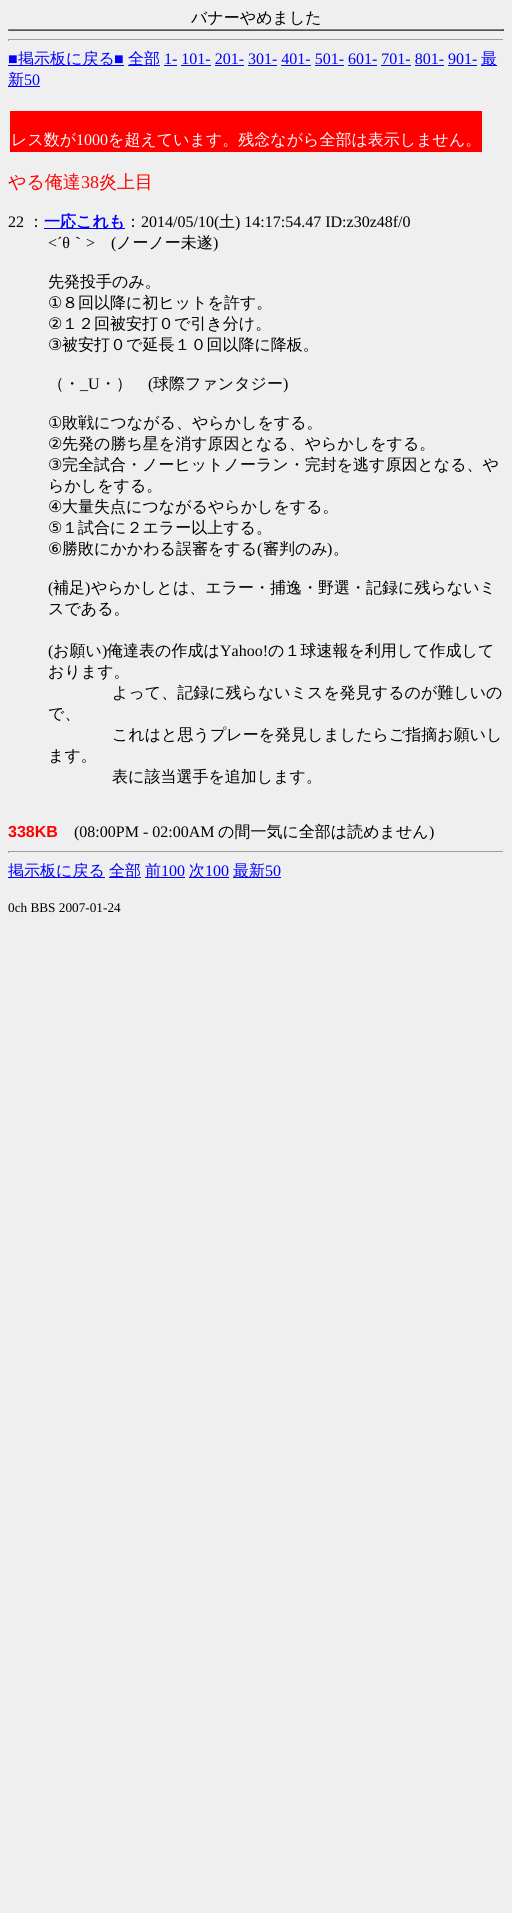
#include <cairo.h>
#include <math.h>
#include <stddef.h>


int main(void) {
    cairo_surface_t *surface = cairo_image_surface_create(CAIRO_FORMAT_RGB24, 512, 1913);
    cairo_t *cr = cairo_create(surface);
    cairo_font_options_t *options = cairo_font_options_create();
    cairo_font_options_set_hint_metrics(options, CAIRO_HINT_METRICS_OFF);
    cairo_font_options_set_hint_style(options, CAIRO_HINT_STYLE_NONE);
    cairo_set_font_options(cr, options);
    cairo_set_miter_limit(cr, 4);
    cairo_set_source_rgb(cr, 0.937, 0.937, 0.937);
    cairo_paint(cr);
    cairo_select_font_face(cr, "WenQuanYi Zen Hei Medium", CAIRO_FONT_SLANT_NORMAL, CAIRO_FONT_WEIGHT_NORMAL);
    cairo_set_font_size(cr, 16);
    cairo_set_source_rgb(cr, 0, 0, 0);
    cairo_move_to(cr, 191, 23);
    cairo_show_text(cr, "バナーやめました");
    cairo_set_source_rgb(cr, 0.502, 0.502, 0.502);
    cairo_rectangle(cr, 8, 29, 496, 1);
    cairo_fill(cr);
    cairo_set_source_rgb(cr, 0.333, 0.333, 0.333);
    cairo_rectangle(cr, 503, 29, 1, 2);
    cairo_fill(cr);
    cairo_rectangle(cr, 8, 30, 496, 1);
    cairo_fill(cr);
    cairo_set_source_rgb(cr, 0.502, 0.502, 0.502);
    cairo_rectangle(cr, 8, 29, 1, 2);
    cairo_fill(cr);
    cairo_set_source_rgb(cr, 0.624, 0.624, 0.624);
    cairo_rectangle(cr, 8, 39, 496, 1);
    cairo_fill(cr);
    cairo_set_source_rgb(cr, 0.933, 0.933, 0.933);
    cairo_rectangle(cr, 503, 39, 1, 2);
    cairo_fill(cr);
    cairo_set_source_rgb(cr, 0.624, 0.624, 0.624);
    cairo_rectangle(cr, 8, 39, 1, 2);
    cairo_fill(cr);
    cairo_select_font_face(cr, "Liberation Serif", CAIRO_FONT_SLANT_NORMAL, CAIRO_FONT_WEIGHT_NORMAL);
    cairo_set_source_rgb(cr, 0, 0, 1);
    cairo_move_to(cr, 8, 64);
    cairo_show_text(cr, "■");
    cairo_rectangle(cr, 8, 65, 116, 1);
    cairo_fill(cr);
    cairo_select_font_face(cr, "WenQuanYi Zen Hei Medium", CAIRO_FONT_SLANT_NORMAL, CAIRO_FONT_WEIGHT_NORMAL);
    cairo_move_to(cr, 18, 64);
    cairo_show_text(cr, "掲示板に戻る");
    cairo_select_font_face(cr, "Liberation Serif", CAIRO_FONT_SLANT_NORMAL, CAIRO_FONT_WEIGHT_NORMAL);
    cairo_move_to(cr, 114, 64);
    cairo_show_text(cr, "■");
    cairo_rectangle(cr, 128, 65, 32, 1);
    cairo_fill(cr);
    cairo_select_font_face(cr, "WenQuanYi Zen Hei Medium", CAIRO_FONT_SLANT_NORMAL, CAIRO_FONT_WEIGHT_NORMAL);
    cairo_move_to(cr, 128, 64);
    cairo_show_text(cr, "全部");
    cairo_select_font_face(cr, "Liberation Serif", CAIRO_FONT_SLANT_NORMAL, CAIRO_FONT_WEIGHT_NORMAL);
    cairo_move_to(cr, 164, 64);
    cairo_show_text(cr, "1- 101- 201- 301- 401- 501- 601- 701- 801- 901-");
    cairo_rectangle(cr, 164, 65, 13, 1);
    cairo_fill(cr);
    cairo_rectangle(cr, 481, 65, 16, 1);
    cairo_fill(cr);
    cairo_select_font_face(cr, "WenQuanYi Zen Hei Medium", CAIRO_FONT_SLANT_NORMAL, CAIRO_FONT_WEIGHT_NORMAL);
    cairo_move_to(cr, 481, 64);
    cairo_show_text(cr, "最");
    cairo_rectangle(cr, 181, 65, 30, 1);
    cairo_fill(cr);
    cairo_rectangle(cr, 215, 65, 29, 1);
    cairo_fill(cr);
    cairo_rectangle(cr, 248, 65, 29, 1);
    cairo_fill(cr);
    cairo_rectangle(cr, 281, 65, 30, 1);
    cairo_fill(cr);
    cairo_rectangle(cr, 315, 65, 29, 1);
    cairo_fill(cr);
    cairo_rectangle(cr, 348, 65, 29, 1);
    cairo_fill(cr);
    cairo_rectangle(cr, 381, 65, 30, 1);
    cairo_fill(cr);
    cairo_rectangle(cr, 415, 65, 29, 1);
    cairo_fill(cr);
    cairo_rectangle(cr, 448, 65, 29, 1);
    cairo_fill(cr);
    cairo_rectangle(cr, 8, 86, 32, 1);
    cairo_fill(cr);
    cairo_move_to(cr, 8, 85);
    cairo_show_text(cr, "新");
    cairo_select_font_face(cr, "Liberation Serif", CAIRO_FONT_SLANT_NORMAL, CAIRO_FONT_WEIGHT_NORMAL);
    cairo_move_to(cr, 24, 85);
    cairo_show_text(cr, "50");
    cairo_set_source_rgb(cr, 1, 0, 0);
    cairo_rectangle(cr, 10, 111, 472, 41);
    cairo_fill(cr);
    cairo_select_font_face(cr, "WenQuanYi Zen Hei Medium", CAIRO_FONT_SLANT_NORMAL, CAIRO_FONT_WEIGHT_NORMAL);
    cairo_set_source_rgb(cr, 1, 1, 1);
    cairo_move_to(cr, 11, 145);
    cairo_show_text(cr, "レス数が");
    cairo_select_font_face(cr, "Liberation Serif", CAIRO_FONT_SLANT_NORMAL, CAIRO_FONT_WEIGHT_NORMAL);
    cairo_move_to(cr, 76, 145);
    cairo_show_text(cr, "1000");
    cairo_select_font_face(cr, "WenQuanYi Zen Hei Medium", CAIRO_FONT_SLANT_NORMAL, CAIRO_FONT_WEIGHT_NORMAL);
    cairo_move_to(cr, 108, 145);
    cairo_show_text(cr, "を超えています。残念ながら全部は表示しません。");
    cairo_set_font_size(cr, 18);
    cairo_set_source_rgb(cr, 1, 0, 0);
    cairo_move_to(cr, 8, 188);
    cairo_show_text(cr, "やる俺達");
    cairo_select_font_face(cr, "Liberation Serif", CAIRO_FONT_SLANT_NORMAL, CAIRO_FONT_WEIGHT_NORMAL);
    cairo_move_to(cr, 81, 188);
    cairo_show_text(cr, "38");
    cairo_select_font_face(cr, "WenQuanYi Zen Hei Medium", CAIRO_FONT_SLANT_NORMAL, CAIRO_FONT_WEIGHT_NORMAL);
    cairo_move_to(cr, 99, 188);
    cairo_show_text(cr, "炎上目");
    cairo_select_font_face(cr, "Liberation Serif", CAIRO_FONT_SLANT_NORMAL, CAIRO_FONT_WEIGHT_NORMAL);
    cairo_set_font_size(cr, 16);
    cairo_set_source_rgb(cr, 0, 0, 0);
    cairo_move_to(cr, 8, 227);
    cairo_show_text(cr, "22");
    cairo_select_font_face(cr, "WenQuanYi Zen Hei Medium", CAIRO_FONT_SLANT_NORMAL, CAIRO_FONT_WEIGHT_NORMAL);
    cairo_move_to(cr, 28, 227);
    cairo_show_text(cr, "：");
    cairo_set_source_rgb(cr, 0, 0, 1);
    cairo_rectangle(cr, 44, 228, 81, 1);
    cairo_fill(cr);
    cairo_select_font_face(cr, "WenQuanYi Zen Hei", CAIRO_FONT_SLANT_NORMAL, CAIRO_FONT_WEIGHT_BOLD);
    cairo_move_to(cr, 44, 227);
    cairo_show_text(cr, "一応これも");
    cairo_select_font_face(cr, "WenQuanYi Zen Hei Medium", CAIRO_FONT_SLANT_NORMAL, CAIRO_FONT_WEIGHT_NORMAL);
    cairo_set_source_rgb(cr, 0, 0, 0);
    cairo_move_to(cr, 125, 227);
    cairo_show_text(cr, "：");
    cairo_select_font_face(cr, "Liberation Serif", CAIRO_FONT_SLANT_NORMAL, CAIRO_FONT_WEIGHT_NORMAL);
    cairo_move_to(cr, 141, 227);
    cairo_show_text(cr, "2014/05/10(");
    cairo_select_font_face(cr, "WenQuanYi Zen Hei Medium", CAIRO_FONT_SLANT_NORMAL, CAIRO_FONT_WEIGHT_NORMAL);
    cairo_move_to(cr, 219, 227);
    cairo_show_text(cr, "土");
    cairo_select_font_face(cr, "Liberation Serif", CAIRO_FONT_SLANT_NORMAL, CAIRO_FONT_WEIGHT_NORMAL);
    cairo_move_to(cr, 235, 227);
    cairo_show_text(cr, ") 14:17:54.47 ID:z30z48f/0");
    cairo_move_to(cr, 48, 248);
    cairo_show_text(cr, "<´θ");
    cairo_select_font_face(cr, "WenQuanYi Zen Hei Medium", CAIRO_FONT_SLANT_NORMAL, CAIRO_FONT_WEIGHT_NORMAL);
    cairo_move_to(cr, 70, 248);
    cairo_show_text(cr, "｀");
    cairo_select_font_face(cr, "Liberation Serif", CAIRO_FONT_SLANT_NORMAL, CAIRO_FONT_WEIGHT_NORMAL);
    cairo_move_to(cr, 86, 248);
    cairo_show_text(cr, ">");
    cairo_move_to(cr, 111, 248);
    cairo_show_text(cr, "(");
    cairo_select_font_face(cr, "WenQuanYi Zen Hei Medium", CAIRO_FONT_SLANT_NORMAL, CAIRO_FONT_WEIGHT_NORMAL);
    cairo_move_to(cr, 116, 248);
    cairo_show_text(cr, "ノーノー未遂");
    cairo_select_font_face(cr, "Liberation Serif", CAIRO_FONT_SLANT_NORMAL, CAIRO_FONT_WEIGHT_NORMAL);
    cairo_move_to(cr, 213, 248);
    cairo_show_text(cr, ")");
    cairo_select_font_face(cr, "WenQuanYi Zen Hei Medium", CAIRO_FONT_SLANT_NORMAL, CAIRO_FONT_WEIGHT_NORMAL);
    cairo_move_to(cr, 48, 287);
    cairo_show_text(cr, "先発投手のみ。");
    cairo_select_font_face(cr, "DejaVu Sans", CAIRO_FONT_SLANT_NORMAL, CAIRO_FONT_WEIGHT_NORMAL);
    cairo_move_to(cr, 48, 308);
    cairo_show_text(cr, "①");
    cairo_select_font_face(cr, "WenQuanYi Zen Hei Medium", CAIRO_FONT_SLANT_NORMAL, CAIRO_FONT_WEIGHT_NORMAL);
    cairo_move_to(cr, 62, 308);
    cairo_show_text(cr, "８回以降に初ヒットを許す。");
    cairo_select_font_face(cr, "DejaVu Sans", CAIRO_FONT_SLANT_NORMAL, CAIRO_FONT_WEIGHT_NORMAL);
    cairo_move_to(cr, 48, 329);
    cairo_show_text(cr, "②");
    cairo_select_font_face(cr, "WenQuanYi Zen Hei Medium", CAIRO_FONT_SLANT_NORMAL, CAIRO_FONT_WEIGHT_NORMAL);
    cairo_move_to(cr, 62, 329);
    cairo_show_text(cr, "１２回被安打０で引き分け。");
    cairo_select_font_face(cr, "DejaVu Sans", CAIRO_FONT_SLANT_NORMAL, CAIRO_FONT_WEIGHT_NORMAL);
    cairo_move_to(cr, 48, 350);
    cairo_show_text(cr, "③");
    cairo_select_font_face(cr, "WenQuanYi Zen Hei Medium", CAIRO_FONT_SLANT_NORMAL, CAIRO_FONT_WEIGHT_NORMAL);
    cairo_move_to(cr, 62, 350);
    cairo_show_text(cr, "被安打０で延長１０回以降に降板。");
    cairo_move_to(cr, 48, 389);
    cairo_show_text(cr, "（・");
    cairo_select_font_face(cr, "Liberation Serif", CAIRO_FONT_SLANT_NORMAL, CAIRO_FONT_WEIGHT_NORMAL);
    cairo_move_to(cr, 80, 389);
    cairo_show_text(cr, "_U");
    cairo_select_font_face(cr, "WenQuanYi Zen Hei Medium", CAIRO_FONT_SLANT_NORMAL, CAIRO_FONT_WEIGHT_NORMAL);
    cairo_move_to(cr, 100, 389);
    cairo_show_text(cr, "・）");
    cairo_select_font_face(cr, "Liberation Serif", CAIRO_FONT_SLANT_NORMAL, CAIRO_FONT_WEIGHT_NORMAL);
    cairo_move_to(cr, 148, 389);
    cairo_show_text(cr, "(");
    cairo_select_font_face(cr, "WenQuanYi Zen Hei Medium", CAIRO_FONT_SLANT_NORMAL, CAIRO_FONT_WEIGHT_NORMAL);
    cairo_move_to(cr, 153, 389);
    cairo_show_text(cr, "球際ファンタジー");
    cairo_select_font_face(cr, "Liberation Serif", CAIRO_FONT_SLANT_NORMAL, CAIRO_FONT_WEIGHT_NORMAL);
    cairo_move_to(cr, 283, 389);
    cairo_show_text(cr, ")");
    cairo_select_font_face(cr, "DejaVu Sans", CAIRO_FONT_SLANT_NORMAL, CAIRO_FONT_WEIGHT_NORMAL);
    cairo_move_to(cr, 48, 428);
    cairo_show_text(cr, "①");
    cairo_select_font_face(cr, "WenQuanYi Zen Hei Medium", CAIRO_FONT_SLANT_NORMAL, CAIRO_FONT_WEIGHT_NORMAL);
    cairo_move_to(cr, 62, 428);
    cairo_show_text(cr, "敗戦につながる、やらかしをする。");
    cairo_select_font_face(cr, "DejaVu Sans", CAIRO_FONT_SLANT_NORMAL, CAIRO_FONT_WEIGHT_NORMAL);
    cairo_move_to(cr, 48, 449);
    cairo_show_text(cr, "②");
    cairo_select_font_face(cr, "WenQuanYi Zen Hei Medium", CAIRO_FONT_SLANT_NORMAL, CAIRO_FONT_WEIGHT_NORMAL);
    cairo_move_to(cr, 62, 449);
    cairo_show_text(cr, "先発の勝ち星を消す原因となる、やらかしをする。");
    cairo_select_font_face(cr, "DejaVu Sans", CAIRO_FONT_SLANT_NORMAL, CAIRO_FONT_WEIGHT_NORMAL);
    cairo_move_to(cr, 48, 470);
    cairo_show_text(cr, "③");
    cairo_select_font_face(cr, "WenQuanYi Zen Hei Medium", CAIRO_FONT_SLANT_NORMAL, CAIRO_FONT_WEIGHT_NORMAL);
    cairo_move_to(cr, 62, 470);
    cairo_show_text(cr, "完全試合・ノーヒットノーラン・完封を逃す原因となる、や");
    cairo_move_to(cr, 48, 491);
    cairo_show_text(cr, "らかしをする。");
    cairo_select_font_face(cr, "DejaVu Sans", CAIRO_FONT_SLANT_NORMAL, CAIRO_FONT_WEIGHT_NORMAL);
    cairo_move_to(cr, 48, 512);
    cairo_show_text(cr, "④");
    cairo_select_font_face(cr, "WenQuanYi Zen Hei Medium", CAIRO_FONT_SLANT_NORMAL, CAIRO_FONT_WEIGHT_NORMAL);
    cairo_move_to(cr, 62, 512);
    cairo_show_text(cr, "大量失点につながるやらかしをする。");
    cairo_select_font_face(cr, "DejaVu Sans", CAIRO_FONT_SLANT_NORMAL, CAIRO_FONT_WEIGHT_NORMAL);
    cairo_move_to(cr, 48, 533);
    cairo_show_text(cr, "⑤");
    cairo_select_font_face(cr, "WenQuanYi Zen Hei Medium", CAIRO_FONT_SLANT_NORMAL, CAIRO_FONT_WEIGHT_NORMAL);
    cairo_move_to(cr, 62, 533);
    cairo_show_text(cr, "１試合に２エラー以上する。");
    cairo_select_font_face(cr, "DejaVu Sans", CAIRO_FONT_SLANT_NORMAL, CAIRO_FONT_WEIGHT_NORMAL);
    cairo_move_to(cr, 48, 554);
    cairo_show_text(cr, "⑥");
    cairo_select_font_face(cr, "WenQuanYi Zen Hei Medium", CAIRO_FONT_SLANT_NORMAL, CAIRO_FONT_WEIGHT_NORMAL);
    cairo_move_to(cr, 62, 554);
    cairo_show_text(cr, "勝敗にかかわる誤審をする");
    cairo_select_font_face(cr, "Liberation Serif", CAIRO_FONT_SLANT_NORMAL, CAIRO_FONT_WEIGHT_NORMAL);
    cairo_move_to(cr, 257, 554);
    cairo_show_text(cr, "(");
    cairo_select_font_face(cr, "WenQuanYi Zen Hei Medium", CAIRO_FONT_SLANT_NORMAL, CAIRO_FONT_WEIGHT_NORMAL);
    cairo_move_to(cr, 263, 554);
    cairo_show_text(cr, "審判のみ");
    cairo_select_font_face(cr, "Liberation Serif", CAIRO_FONT_SLANT_NORMAL, CAIRO_FONT_WEIGHT_NORMAL);
    cairo_move_to(cr, 327, 554);
    cairo_show_text(cr, ")");
    cairo_select_font_face(cr, "WenQuanYi Zen Hei Medium", CAIRO_FONT_SLANT_NORMAL, CAIRO_FONT_WEIGHT_NORMAL);
    cairo_move_to(cr, 333, 554);
    cairo_show_text(cr, "。");
    cairo_select_font_face(cr, "Liberation Serif", CAIRO_FONT_SLANT_NORMAL, CAIRO_FONT_WEIGHT_NORMAL);
    cairo_move_to(cr, 48, 593);
    cairo_show_text(cr, "(");
    cairo_select_font_face(cr, "WenQuanYi Zen Hei Medium", CAIRO_FONT_SLANT_NORMAL, CAIRO_FONT_WEIGHT_NORMAL);
    cairo_move_to(cr, 53, 593);
    cairo_show_text(cr, "補足");
    cairo_select_font_face(cr, "Liberation Serif", CAIRO_FONT_SLANT_NORMAL, CAIRO_FONT_WEIGHT_NORMAL);
    cairo_move_to(cr, 85, 593);
    cairo_show_text(cr, ")");
    cairo_select_font_face(cr, "WenQuanYi Zen Hei Medium", CAIRO_FONT_SLANT_NORMAL, CAIRO_FONT_WEIGHT_NORMAL);
    cairo_move_to(cr, 91, 593);
    cairo_show_text(cr, "やらかしとは、エラー・捕逸・野選・記録に残らないミ");
    cairo_move_to(cr, 48, 614);
    cairo_show_text(cr, "スである。");
    cairo_select_font_face(cr, "Liberation Serif", CAIRO_FONT_SLANT_NORMAL, CAIRO_FONT_WEIGHT_NORMAL);
    cairo_move_to(cr, 48, 656);
    cairo_show_text(cr, "(");
    cairo_select_font_face(cr, "WenQuanYi Zen Hei Medium", CAIRO_FONT_SLANT_NORMAL, CAIRO_FONT_WEIGHT_NORMAL);
    cairo_move_to(cr, 53, 656);
    cairo_show_text(cr, "お願い");
    cairo_select_font_face(cr, "Liberation Serif", CAIRO_FONT_SLANT_NORMAL, CAIRO_FONT_WEIGHT_NORMAL);
    cairo_move_to(cr, 102, 656);
    cairo_show_text(cr, ")");
    cairo_select_font_face(cr, "WenQuanYi Zen Hei Medium", CAIRO_FONT_SLANT_NORMAL, CAIRO_FONT_WEIGHT_NORMAL);
    cairo_move_to(cr, 107, 656);
    cairo_show_text(cr, "俺達表の作成は");
    cairo_select_font_face(cr, "Liberation Serif", CAIRO_FONT_SLANT_NORMAL, CAIRO_FONT_WEIGHT_NORMAL);
    cairo_move_to(cr, 220, 656);
    cairo_show_text(cr, "Yahoo!");
    cairo_select_font_face(cr, "WenQuanYi Zen Hei Medium", CAIRO_FONT_SLANT_NORMAL, CAIRO_FONT_WEIGHT_NORMAL);
    cairo_move_to(cr, 268, 656);
    cairo_show_text(cr, "の１球速報を利用して作成して");
    cairo_move_to(cr, 48, 677);
    cairo_show_text(cr, "おります。");
    cairo_move_to(cr, 112, 698);
    cairo_show_text(cr, "よって、記録に残らないミスを発見するのが難しいの");
    cairo_move_to(cr, 48, 719);
    cairo_show_text(cr, "で、");
    cairo_move_to(cr, 112, 740);
    cairo_show_text(cr, "これはと思うプレーを発見しましたらご指摘お願いし");
    cairo_move_to(cr, 48, 761);
    cairo_show_text(cr, "ます。");
    cairo_move_to(cr, 112, 782);
    cairo_show_text(cr, "表に該当選手を追加します。");
    cairo_select_font_face(cr, "Liberation Sans", CAIRO_FONT_SLANT_NORMAL, CAIRO_FONT_WEIGHT_BOLD);
    cairo_set_source_rgb(cr, 1, 0, 0);
    cairo_move_to(cr, 8, 837);
    cairo_show_text(cr, "338KB");
    cairo_select_font_face(cr, "Liberation Serif", CAIRO_FONT_SLANT_NORMAL, CAIRO_FONT_WEIGHT_NORMAL);
    cairo_set_source_rgb(cr, 0, 0, 0);
    cairo_move_to(cr, 74, 837);
    cairo_show_text(cr, "(08:00PM - 02:00AM");
    cairo_select_font_face(cr, "WenQuanYi Zen Hei Medium", CAIRO_FONT_SLANT_NORMAL, CAIRO_FONT_WEIGHT_NORMAL);
    cairo_move_to(cr, 218, 837);
    cairo_show_text(cr, "の間一気に全部は読めません");
    cairo_select_font_face(cr, "Liberation Serif", CAIRO_FONT_SLANT_NORMAL, CAIRO_FONT_WEIGHT_NORMAL);
    cairo_move_to(cr, 429, 837);
    cairo_show_text(cr, ")");
    cairo_set_source_rgb(cr, 0.624, 0.624, 0.624);
    cairo_rectangle(cr, 8, 851, 496, 1);
    cairo_fill(cr);
    cairo_set_source_rgb(cr, 0.933, 0.933, 0.933);
    cairo_rectangle(cr, 503, 851, 1, 2);
    cairo_fill(cr);
    cairo_set_source_rgb(cr, 0.624, 0.624, 0.624);
    cairo_rectangle(cr, 8, 851, 1, 2);
    cairo_fill(cr);
    cairo_set_source_rgb(cr, 0, 0, 1);
    cairo_rectangle(cr, 8, 877, 97, 1);
    cairo_fill(cr);
    cairo_select_font_face(cr, "WenQuanYi Zen Hei Medium", CAIRO_FONT_SLANT_NORMAL, CAIRO_FONT_WEIGHT_NORMAL);
    cairo_move_to(cr, 8, 876);
    cairo_show_text(cr, "掲示板に戻る");
    cairo_rectangle(cr, 109, 877, 32, 1);
    cairo_fill(cr);
    cairo_move_to(cr, 109, 876);
    cairo_show_text(cr, "全部");
    cairo_rectangle(cr, 145, 877, 40, 1);
    cairo_fill(cr);
    cairo_move_to(cr, 145, 876);
    cairo_show_text(cr, "前");
    cairo_select_font_face(cr, "Liberation Serif", CAIRO_FONT_SLANT_NORMAL, CAIRO_FONT_WEIGHT_NORMAL);
    cairo_move_to(cr, 161, 876);
    cairo_show_text(cr, "100");
    cairo_rectangle(cr, 189, 877, 40, 1);
    cairo_fill(cr);
    cairo_select_font_face(cr, "WenQuanYi Zen Hei Medium", CAIRO_FONT_SLANT_NORMAL, CAIRO_FONT_WEIGHT_NORMAL);
    cairo_move_to(cr, 189, 876);
    cairo_show_text(cr, "次");
    cairo_select_font_face(cr, "Liberation Serif", CAIRO_FONT_SLANT_NORMAL, CAIRO_FONT_WEIGHT_NORMAL);
    cairo_move_to(cr, 205, 876);
    cairo_show_text(cr, "100");
    cairo_rectangle(cr, 233, 877, 48, 1);
    cairo_fill(cr);
    cairo_select_font_face(cr, "WenQuanYi Zen Hei Medium", CAIRO_FONT_SLANT_NORMAL, CAIRO_FONT_WEIGHT_NORMAL);
    cairo_move_to(cr, 233, 876);
    cairo_show_text(cr, "最新");
    cairo_select_font_face(cr, "Liberation Serif", CAIRO_FONT_SLANT_NORMAL, CAIRO_FONT_WEIGHT_NORMAL);
    cairo_move_to(cr, 265, 876);
    cairo_show_text(cr, "50");
    cairo_set_font_size(cr, 13.25);
    cairo_set_source_rgb(cr, 0, 0, 0);
    cairo_move_to(cr, 8, 912);
    cairo_show_text(cr, "0ch BBS 2007-01-24");
    cairo_surface_write_to_png(surface, "page.png");
    cairo_font_options_destroy(options);
    cairo_destroy(cr);
    cairo_surface_destroy(surface);
    return 0;
}
